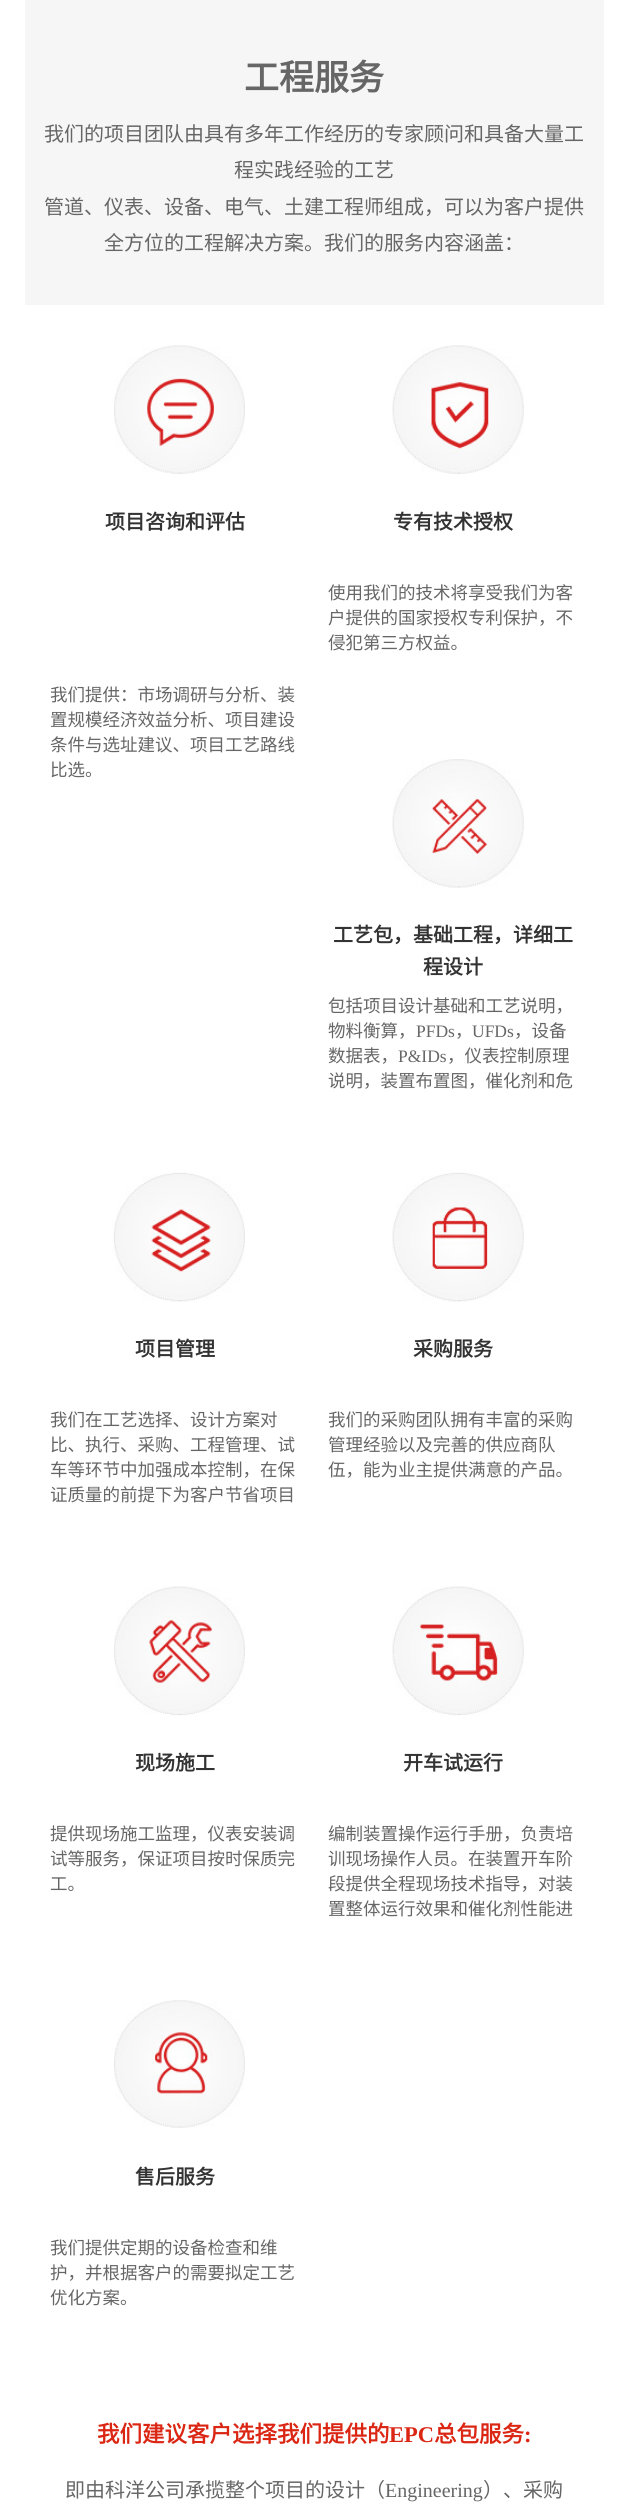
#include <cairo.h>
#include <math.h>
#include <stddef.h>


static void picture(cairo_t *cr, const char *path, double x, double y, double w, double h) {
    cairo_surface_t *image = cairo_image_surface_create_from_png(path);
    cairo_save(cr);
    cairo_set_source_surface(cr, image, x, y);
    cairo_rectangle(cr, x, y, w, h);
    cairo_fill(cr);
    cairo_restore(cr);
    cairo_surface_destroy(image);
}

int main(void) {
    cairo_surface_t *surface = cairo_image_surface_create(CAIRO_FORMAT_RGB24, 628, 2513);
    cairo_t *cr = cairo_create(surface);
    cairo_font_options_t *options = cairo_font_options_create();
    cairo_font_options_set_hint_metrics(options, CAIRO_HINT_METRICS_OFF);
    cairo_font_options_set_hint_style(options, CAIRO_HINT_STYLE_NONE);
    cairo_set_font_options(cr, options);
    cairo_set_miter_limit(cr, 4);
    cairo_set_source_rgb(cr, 1, 1, 1);
    cairo_paint(cr);
    cairo_set_source_rgb(cr, 0.961, 0.961, 0.961);
    cairo_rectangle(cr, 25, 0, 579, 305);
    cairo_fill(cr);
    cairo_select_font_face(cr, "Noto Sans CJK SC", CAIRO_FONT_SLANT_NORMAL, CAIRO_FONT_WEIGHT_BOLD);
    cairo_set_font_size(cr, 35);
    cairo_set_source_rgb(cr, 0.4, 0.4, 0.4);
    cairo_move_to(cr, 244, 90);
    cairo_show_text(cr, "工程服务");
    cairo_select_font_face(cr, "Noto Sans CJK SC", CAIRO_FONT_SLANT_NORMAL, CAIRO_FONT_WEIGHT_NORMAL);
    cairo_set_font_size(cr, 20);
    cairo_move_to(cr, 44, 141);
    cairo_show_text(cr, "我们的项目团队由具有多年工作经历的专家顾问和具备大量工");
    cairo_move_to(cr, 234, 177);
    cairo_show_text(cr, "程实践经验的工艺");
    cairo_move_to(cr, 44, 214);
    cairo_show_text(cr, "管道、仪表、设备、电气、土建工程师组成，可以为客户提供");
    cairo_move_to(cr, 104, 250);
    cairo_show_text(cr, "全方位的工程解决方案。我们的服务内容涵盖：");
    picture(cr, "img1.png", 114, 345, 131, 129);
    cairo_select_font_face(cr, "Noto Sans CJK SC", CAIRO_FONT_SLANT_NORMAL, CAIRO_FONT_WEIGHT_BOLD);
    cairo_set_source_rgb(cr, 0.2, 0.2, 0.2);
    cairo_move_to(cr, 105, 529);
    cairo_show_text(cr, "项目咨询和评估");
    cairo_select_font_face(cr, "Noto Sans CJK SC", CAIRO_FONT_SLANT_NORMAL, CAIRO_FONT_WEIGHT_NORMAL);
    cairo_set_font_size(cr, 17.5);
    cairo_set_source_rgb(cr, 0.4, 0.4, 0.4);
    cairo_move_to(cr, 50, 701);
    cairo_show_text(cr, "我们提供：市场调研与分析、装");
    cairo_move_to(cr, 50, 726);
    cairo_show_text(cr, "置规模经济效益分析、项目建设");
    cairo_move_to(cr, 50, 751);
    cairo_show_text(cr, "条件与选址建议、项目工艺路线");
    cairo_move_to(cr, 50, 776);
    cairo_show_text(cr, "比选。");
    picture(cr, "img2.png", 392, 345, 132, 129);
    cairo_select_font_face(cr, "Noto Sans CJK SC", CAIRO_FONT_SLANT_NORMAL, CAIRO_FONT_WEIGHT_BOLD);
    cairo_set_font_size(cr, 20);
    cairo_set_source_rgb(cr, 0.2, 0.2, 0.2);
    cairo_move_to(cr, 393, 529);
    cairo_show_text(cr, "专有技术授权");
    cairo_select_font_face(cr, "Noto Sans CJK SC", CAIRO_FONT_SLANT_NORMAL, CAIRO_FONT_WEIGHT_NORMAL);
    cairo_set_font_size(cr, 17.5);
    cairo_set_source_rgb(cr, 0.4, 0.4, 0.4);
    cairo_move_to(cr, 328, 599);
    cairo_show_text(cr, "使用我们的技术将享受我们为客");
    cairo_move_to(cr, 328, 624);
    cairo_show_text(cr, "户提供的国家授权专利保护，不");
    cairo_move_to(cr, 328, 649);
    cairo_show_text(cr, "侵犯第三方权益。");
    picture(cr, "img3.png", 392, 759, 132, 129);
    cairo_select_font_face(cr, "Noto Sans CJK SC", CAIRO_FONT_SLANT_NORMAL, CAIRO_FONT_WEIGHT_BOLD);
    cairo_set_font_size(cr, 20);
    cairo_set_source_rgb(cr, 0.2, 0.2, 0.2);
    cairo_move_to(cr, 333, 942);
    cairo_show_text(cr, "工艺包，基础工程，详细工");
    cairo_move_to(cr, 423, 974);
    cairo_show_text(cr, "程设计");
    cairo_select_font_face(cr, "Noto Sans CJK SC", CAIRO_FONT_SLANT_NORMAL, CAIRO_FONT_WEIGHT_NORMAL);
    cairo_set_font_size(cr, 17.5);
    cairo_set_source_rgb(cr, 0.4, 0.4, 0.4);
    cairo_move_to(cr, 328, 1012);
    cairo_show_text(cr, "包括项目设计基础和工艺说明，");
    cairo_move_to(cr, 328, 1037);
    cairo_show_text(cr, "物料衡算，");
    cairo_select_font_face(cr, "Liberation Serif", CAIRO_FONT_SLANT_NORMAL, CAIRO_FONT_WEIGHT_NORMAL);
    cairo_move_to(cr, 416, 1037);
    cairo_show_text(cr, "PFDs");
    cairo_select_font_face(cr, "Noto Sans CJK SC", CAIRO_FONT_SLANT_NORMAL, CAIRO_FONT_WEIGHT_NORMAL);
    cairo_move_to(cr, 455, 1037);
    cairo_show_text(cr, "，");
    cairo_select_font_face(cr, "Liberation Serif", CAIRO_FONT_SLANT_NORMAL, CAIRO_FONT_WEIGHT_NORMAL);
    cairo_move_to(cr, 472, 1037);
    cairo_show_text(cr, "UFDs");
    cairo_select_font_face(cr, "Noto Sans CJK SC", CAIRO_FONT_SLANT_NORMAL, CAIRO_FONT_WEIGHT_NORMAL);
    cairo_move_to(cr, 514, 1037);
    cairo_show_text(cr, "，设备");
    cairo_move_to(cr, 328, 1062);
    cairo_show_text(cr, "数据表，");
    cairo_select_font_face(cr, "Liberation Serif", CAIRO_FONT_SLANT_NORMAL, CAIRO_FONT_WEIGHT_NORMAL);
    cairo_move_to(cr, 398, 1062);
    cairo_show_text(cr, "P&IDs");
    cairo_select_font_face(cr, "Noto Sans CJK SC", CAIRO_FONT_SLANT_NORMAL, CAIRO_FONT_WEIGHT_NORMAL);
    cairo_move_to(cr, 447, 1062);
    cairo_show_text(cr, "，仪表控制原理");
    cairo_move_to(cr, 328, 1087);
    cairo_show_text(cr, "说明，装置布置图，催化剂和危");
    picture(cr, "img4.png", 112, 1172, 133, 130);
    cairo_select_font_face(cr, "Noto Sans CJK SC", CAIRO_FONT_SLANT_NORMAL, CAIRO_FONT_WEIGHT_BOLD);
    cairo_set_font_size(cr, 20);
    cairo_set_source_rgb(cr, 0.2, 0.2, 0.2);
    cairo_move_to(cr, 135, 1356);
    cairo_show_text(cr, "项目管理");
    cairo_select_font_face(cr, "Noto Sans CJK SC", CAIRO_FONT_SLANT_NORMAL, CAIRO_FONT_WEIGHT_NORMAL);
    cairo_set_font_size(cr, 17.5);
    cairo_set_source_rgb(cr, 0.4, 0.4, 0.4);
    cairo_move_to(cr, 50, 1426);
    cairo_show_text(cr, "我们在工艺选择、设计方案对");
    cairo_move_to(cr, 50, 1451);
    cairo_show_text(cr, "比、执行、采购、工程管理、试");
    cairo_move_to(cr, 50, 1476);
    cairo_show_text(cr, "车等环节中加强成本控制，在保");
    cairo_move_to(cr, 50, 1501);
    cairo_show_text(cr, "证质量的前提下为客户节省项目");
    picture(cr, "img5.png", 392, 1172, 132, 130);
    cairo_select_font_face(cr, "Noto Sans CJK SC", CAIRO_FONT_SLANT_NORMAL, CAIRO_FONT_WEIGHT_BOLD);
    cairo_set_font_size(cr, 20);
    cairo_set_source_rgb(cr, 0.2, 0.2, 0.2);
    cairo_move_to(cr, 413, 1356);
    cairo_show_text(cr, "采购服务");
    cairo_select_font_face(cr, "Noto Sans CJK SC", CAIRO_FONT_SLANT_NORMAL, CAIRO_FONT_WEIGHT_NORMAL);
    cairo_set_font_size(cr, 17.5);
    cairo_set_source_rgb(cr, 0.4, 0.4, 0.4);
    cairo_move_to(cr, 328, 1426);
    cairo_show_text(cr, "我们的采购团队拥有丰富的采购");
    cairo_move_to(cr, 328, 1451);
    cairo_show_text(cr, "管理经验以及完善的供应商队");
    cairo_move_to(cr, 328, 1476);
    cairo_show_text(cr, "伍，能为业主提供满意的产品。");
    picture(cr, "img6.png", 114, 1586, 131, 130);
    cairo_select_font_face(cr, "Noto Sans CJK SC", CAIRO_FONT_SLANT_NORMAL, CAIRO_FONT_WEIGHT_BOLD);
    cairo_set_font_size(cr, 20);
    cairo_set_source_rgb(cr, 0.2, 0.2, 0.2);
    cairo_move_to(cr, 135, 1770);
    cairo_show_text(cr, "现场施工");
    cairo_select_font_face(cr, "Noto Sans CJK SC", CAIRO_FONT_SLANT_NORMAL, CAIRO_FONT_WEIGHT_NORMAL);
    cairo_set_font_size(cr, 17.5);
    cairo_set_source_rgb(cr, 0.4, 0.4, 0.4);
    cairo_move_to(cr, 50, 1840);
    cairo_show_text(cr, "提供现场施工监理，仪表安装调");
    cairo_move_to(cr, 50, 1865);
    cairo_show_text(cr, "试等服务，保证项目按时保质完");
    cairo_move_to(cr, 50, 1890);
    cairo_show_text(cr, "工。");
    picture(cr, "img7.png", 392, 1586, 132, 130);
    cairo_select_font_face(cr, "Noto Sans CJK SC", CAIRO_FONT_SLANT_NORMAL, CAIRO_FONT_WEIGHT_BOLD);
    cairo_set_font_size(cr, 20);
    cairo_set_source_rgb(cr, 0.2, 0.2, 0.2);
    cairo_move_to(cr, 403, 1770);
    cairo_show_text(cr, "开车试运行");
    cairo_select_font_face(cr, "Noto Sans CJK SC", CAIRO_FONT_SLANT_NORMAL, CAIRO_FONT_WEIGHT_NORMAL);
    cairo_set_font_size(cr, 17.5);
    cairo_set_source_rgb(cr, 0.4, 0.4, 0.4);
    cairo_move_to(cr, 328, 1840);
    cairo_show_text(cr, "编制装置操作运行手册，负责培");
    cairo_move_to(cr, 328, 1865);
    cairo_show_text(cr, "训现场操作人员。在装置开车阶");
    cairo_move_to(cr, 328, 1890);
    cairo_show_text(cr, "段提供全程现场技术指导，对装");
    cairo_move_to(cr, 328, 1915);
    cairo_show_text(cr, "置整体运行效果和催化剂性能进");
    picture(cr, "img8.png", 114, 2000, 131, 128);
    cairo_select_font_face(cr, "Noto Sans CJK SC", CAIRO_FONT_SLANT_NORMAL, CAIRO_FONT_WEIGHT_BOLD);
    cairo_set_font_size(cr, 20);
    cairo_set_source_rgb(cr, 0.2, 0.2, 0.2);
    cairo_move_to(cr, 135, 2184);
    cairo_show_text(cr, "售后服务");
    cairo_select_font_face(cr, "Noto Sans CJK SC", CAIRO_FONT_SLANT_NORMAL, CAIRO_FONT_WEIGHT_NORMAL);
    cairo_set_font_size(cr, 17.5);
    cairo_set_source_rgb(cr, 0.4, 0.4, 0.4);
    cairo_move_to(cr, 50, 2254);
    cairo_show_text(cr, "我们提供定期的设备检查和维");
    cairo_move_to(cr, 50, 2279);
    cairo_show_text(cr, "护，并根据客户的需要拟定工艺");
    cairo_move_to(cr, 50, 2304);
    cairo_show_text(cr, "优化方案。");
    cairo_select_font_face(cr, "Noto Sans CJK SC", CAIRO_FONT_SLANT_NORMAL, CAIRO_FONT_WEIGHT_BOLD);
    cairo_set_font_size(cr, 22.5);
    cairo_set_source_rgb(cr, 0.859, 0.149, 0.082);
    cairo_move_to(cr, 97, 2442);
    cairo_show_text(cr, "我们建议客户选择我们提供的");
    cairo_select_font_face(cr, "Liberation Serif", CAIRO_FONT_SLANT_NORMAL, CAIRO_FONT_WEIGHT_BOLD);
    cairo_move_to(cr, 389, 2442);
    cairo_show_text(cr, "EPC");
    cairo_select_font_face(cr, "Noto Sans CJK SC", CAIRO_FONT_SLANT_NORMAL, CAIRO_FONT_WEIGHT_BOLD);
    cairo_move_to(cr, 434, 2442);
    cairo_show_text(cr, "总包服务");
    cairo_select_font_face(cr, "Liberation Serif", CAIRO_FONT_SLANT_NORMAL, CAIRO_FONT_WEIGHT_BOLD);
    cairo_move_to(cr, 524, 2442);
    cairo_show_text(cr, ":");
    cairo_select_font_face(cr, "Noto Sans CJK SC", CAIRO_FONT_SLANT_NORMAL, CAIRO_FONT_WEIGHT_NORMAL);
    cairo_set_font_size(cr, 20);
    cairo_set_source_rgb(cr, 0.4, 0.4, 0.4);
    cairo_move_to(cr, 65, 2497);
    cairo_show_text(cr, "即由科洋公司承揽整个项目的设计（");
    cairo_select_font_face(cr, "Liberation Serif", CAIRO_FONT_SLANT_NORMAL, CAIRO_FONT_WEIGHT_NORMAL);
    cairo_move_to(cr, 385, 2497);
    cairo_show_text(cr, "Engineering");
    cairo_select_font_face(cr, "Noto Sans CJK SC", CAIRO_FONT_SLANT_NORMAL, CAIRO_FONT_WEIGHT_NORMAL);
    cairo_move_to(cr, 483, 2497);
    cairo_show_text(cr, "）、采购");
    cairo_surface_write_to_png(surface, "page.png");
    cairo_font_options_destroy(options);
    cairo_destroy(cr);
    cairo_surface_destroy(surface);
    return 0;
}
